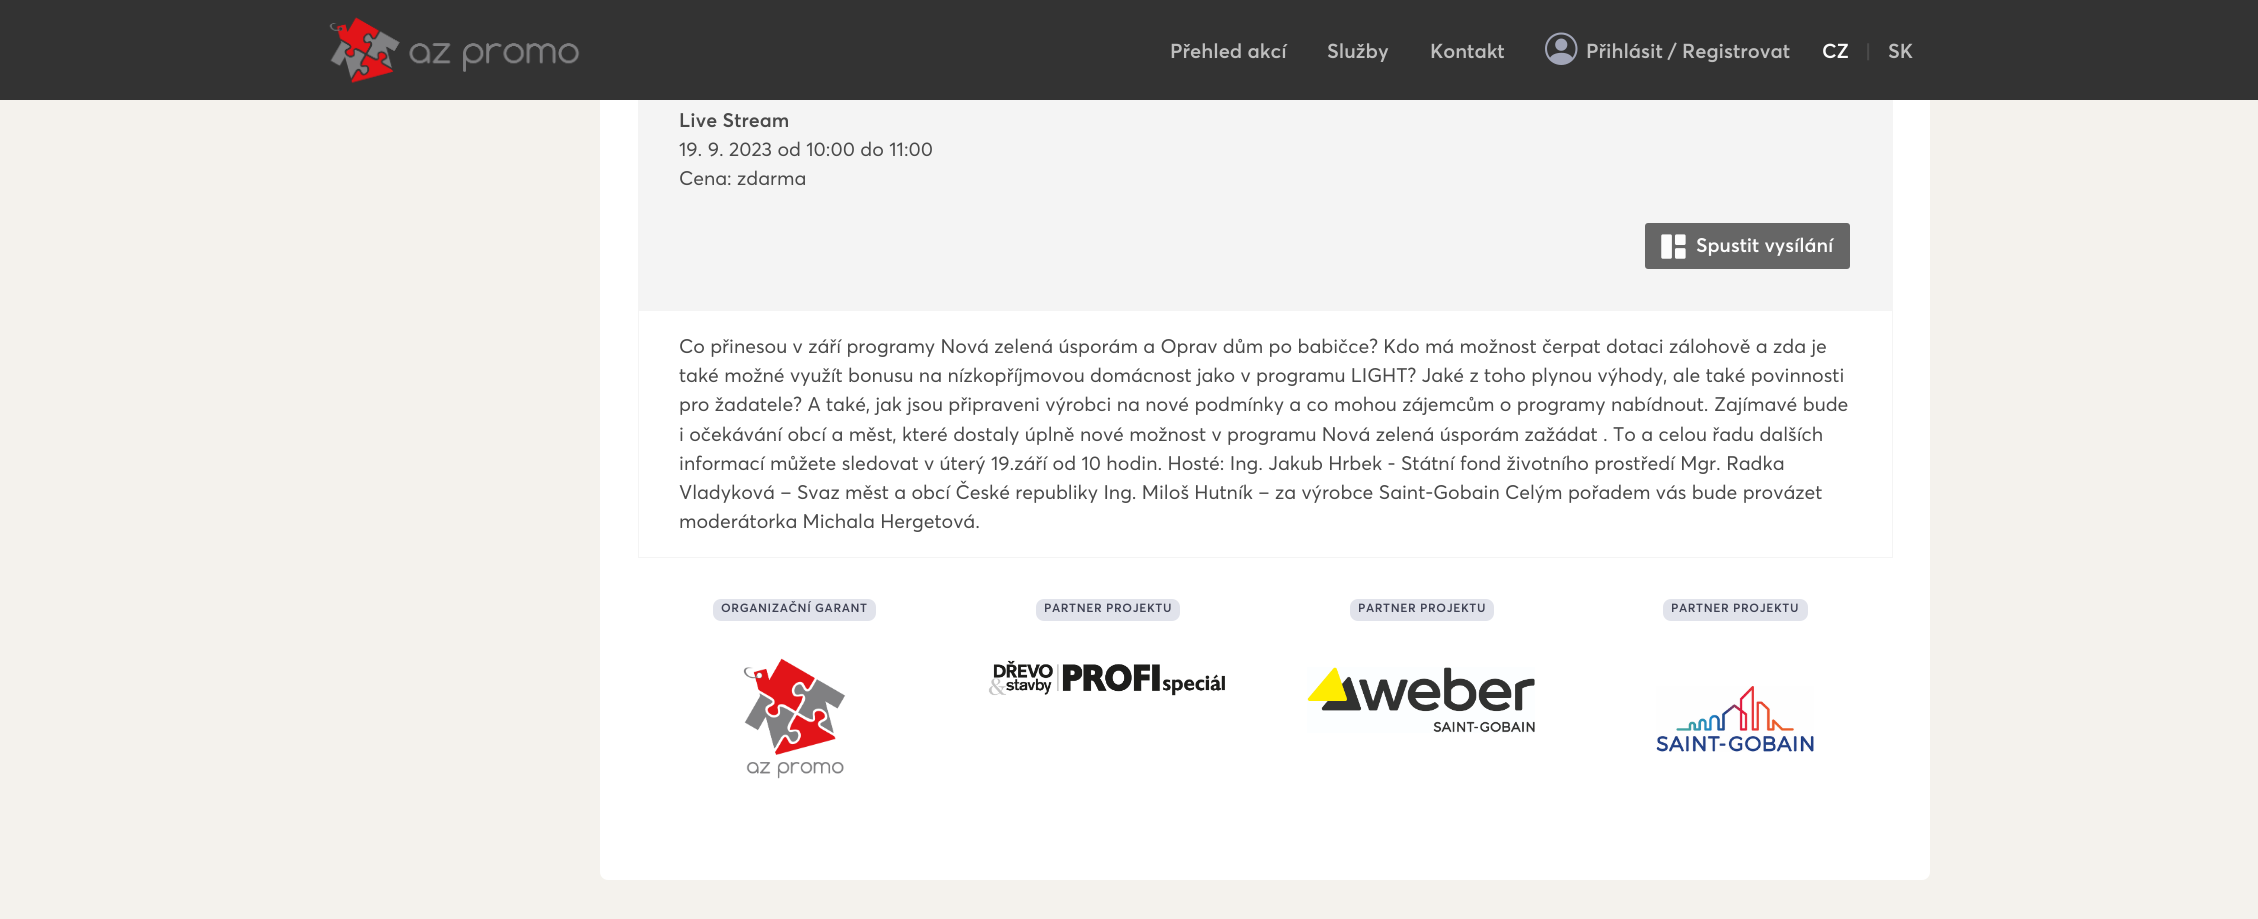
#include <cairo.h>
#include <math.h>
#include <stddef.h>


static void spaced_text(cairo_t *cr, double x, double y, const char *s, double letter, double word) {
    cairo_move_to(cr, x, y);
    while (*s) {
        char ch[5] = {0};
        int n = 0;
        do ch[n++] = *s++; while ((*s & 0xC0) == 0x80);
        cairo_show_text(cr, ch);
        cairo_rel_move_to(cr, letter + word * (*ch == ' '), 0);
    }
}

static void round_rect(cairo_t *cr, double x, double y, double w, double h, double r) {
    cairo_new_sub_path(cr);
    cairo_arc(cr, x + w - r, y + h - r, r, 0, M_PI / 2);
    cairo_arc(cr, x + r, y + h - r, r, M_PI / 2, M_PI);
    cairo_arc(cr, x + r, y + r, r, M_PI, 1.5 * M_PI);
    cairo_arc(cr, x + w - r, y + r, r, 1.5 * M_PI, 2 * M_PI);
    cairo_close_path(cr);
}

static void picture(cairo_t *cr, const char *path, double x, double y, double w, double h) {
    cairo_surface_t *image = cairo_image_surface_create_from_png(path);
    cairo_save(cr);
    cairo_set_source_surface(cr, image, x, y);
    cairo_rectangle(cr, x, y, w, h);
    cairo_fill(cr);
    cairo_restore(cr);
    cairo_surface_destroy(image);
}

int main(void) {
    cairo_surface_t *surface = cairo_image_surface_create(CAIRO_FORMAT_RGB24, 2258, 919);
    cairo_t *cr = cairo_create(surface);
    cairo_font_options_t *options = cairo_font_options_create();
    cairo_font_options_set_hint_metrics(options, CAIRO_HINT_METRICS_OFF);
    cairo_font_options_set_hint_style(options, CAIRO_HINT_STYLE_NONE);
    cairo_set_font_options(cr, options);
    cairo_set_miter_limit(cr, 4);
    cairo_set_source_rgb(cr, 0.957, 0.949, 0.929);
    cairo_paint(cr);
    cairo_set_source_rgb(cr, 1, 1, 1);
    round_rect(cr, 600, -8, 1330, 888, 8);
    cairo_fill(cr);
    cairo_set_source_rgb(cr, 0.2, 0.2, 0.2);
    cairo_rectangle(cr, 0, 0, 2258, 100);
    cairo_fill(cr);
    picture(cr, "img1.png", 329, 17, 251, 66);
    cairo_select_font_face(cr, "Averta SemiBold", CAIRO_FONT_SLANT_NORMAL, CAIRO_FONT_WEIGHT_NORMAL);
    cairo_set_font_size(cr, 20);
    cairo_set_source_rgb(cr, 0.745, 0.745, 0.745);
    cairo_move_to(cr, 1170, 58);
    cairo_show_text(cr, "Přehled akcí");
    cairo_move_to(cr, 1327, 58);
    cairo_show_text(cr, "Služby");
    cairo_move_to(cr, 1430, 58);
    cairo_show_text(cr, "Kontakt");
    picture(cr, "img2.png", 1545, 32, 33, 33);
    cairo_move_to(cr, 1586, 58);
    cairo_show_text(cr, "Přihlásit / Registrovat");
    cairo_set_source_rgb(cr, 0.988, 0.988, 0.988);
    cairo_move_to(cr, 1822, 58);
    cairo_show_text(cr, "CZ");
    cairo_set_source_rgb(cr, 0.29, 0.29, 0.29);
    cairo_move_to(cr, 1865, 58);
    cairo_show_text(cr, "|");
    cairo_set_source_rgb(cr, 0.745, 0.745, 0.745);
    cairo_move_to(cr, 1888, 58);
    cairo_show_text(cr, "SK");
    cairo_set_source_rgb(cr, 0.957, 0.957, 0.957);
    cairo_rectangle(cr, 638, 100, 1255, 210);
    cairo_fill(cr);
    cairo_set_font_size(cr, 19.5);
    cairo_set_source_rgb(cr, 0.29, 0.29, 0.29);
    spaced_text(cr, 679, 127, "Live Stream", 0.1, 0);
    cairo_select_font_face(cr, "Averta", CAIRO_FONT_SLANT_NORMAL, CAIRO_FONT_WEIGHT_NORMAL);
    cairo_move_to(cr, 679, 156);
    cairo_show_text(cr, "19. 9. 2023 od 10:00 do 11:00");
    cairo_move_to(cr, 679, 185);
    cairo_show_text(cr, "Cena: zdarma");
    cairo_set_source_rgb(cr, 0.4, 0.4, 0.4);
    round_rect(cr, 1645, 223, 205, 46, 3);
    cairo_fill(cr);
    picture(cr, "img3.png", 1661, 234, 25, 25);
    cairo_select_font_face(cr, "Averta SemiBold", CAIRO_FONT_SLANT_NORMAL, CAIRO_FONT_WEIGHT_NORMAL);
    cairo_set_source_rgb(cr, 0.988, 0.988, 0.988);
    cairo_move_to(cr, 1696, 252);
    cairo_show_text(cr, "Spustit vysílání");
    cairo_rectangle(cr, 638.5, 310.5, 1254, 247);
    cairo_set_source_rgb(cr, 0.957, 0.957, 0.957);
    cairo_set_line_width(cr, 1);
    cairo_stroke(cr);
    cairo_select_font_face(cr, "Averta", CAIRO_FONT_SLANT_NORMAL, CAIRO_FONT_WEIGHT_NORMAL);
    cairo_set_source_rgb(cr, 0.29, 0.29, 0.29);
    cairo_move_to(cr, 679, 353);
    cairo_show_text(cr, "Co přinesou v září programy Nová zelená úsporám a Oprav dům po babičce? Kdo má možnost čerpat dotaci zálohově a zda je");
    cairo_move_to(cr, 679, 382);
    cairo_show_text(cr, "také možné využít bonusu na nízkopříjmovou domácnost jako v programu LIGHT? Jaké z toho plynou výhody, ale také povinnosti");
    cairo_move_to(cr, 679, 411);
    cairo_show_text(cr, "pro žadatele? A také, jak jsou připraveni výrobci na nové podmínky a co mohou zájemcům o programy nabídnout. Zajímavé bude");
    cairo_move_to(cr, 679, 441);
    cairo_show_text(cr, "i očekávání obcí a měst, které dostaly úplně nové možnost v programu Nová zelená úsporám zažádat . To a celou řadu dalších");
    cairo_move_to(cr, 679, 470);
    cairo_show_text(cr, "informací můžete sledovat v úterý 19.září od 10 hodin. Hosté: Ing. Jakub Hrbek - Státní fond životního prostředí Mgr. Radka");
    cairo_move_to(cr, 679, 499);
    cairo_show_text(cr, "Vladyková – Svaz měst a obcí České republiky Ing. Miloš Hutník – za výrobce Saint-Gobain");
    cairo_move_to(cr, 1505, 499);
    cairo_show_text(cr, "Celým pořadem vás bude provázet");
    cairo_move_to(cr, 679, 528);
    cairo_show_text(cr, "moderátorka Michala Hergetová.");
    cairo_set_source_rgb(cr, 0.882, 0.89, 0.918);
    round_rect(cr, 713, 599, 163, 22, 8);
    cairo_fill(cr);
    cairo_select_font_face(cr, "Averta SemiBold", CAIRO_FONT_SLANT_NORMAL, CAIRO_FONT_WEIGHT_NORMAL);
    cairo_set_font_size(cr, 11.75);
    cairo_set_source_rgb(cr, 0.247, 0.259, 0.329);
    spaced_text(cr, 721, 612, "ORGANIZAČNÍ GARANT", 0.6, 0);
    picture(cr, "img4.png", 743, 658, 103, 121);
    cairo_set_source_rgb(cr, 0.882, 0.89, 0.918);
    round_rect(cr, 1036, 599, 144, 22, 8);
    cairo_fill(cr);
    cairo_set_source_rgb(cr, 0.247, 0.259, 0.329);
    spaced_text(cr, 1044, 612, "PARTNER PROJEKTU", 0.6, 0);
    picture(cr, "img5.png", 988, 660, 237, 36);
    cairo_set_source_rgb(cr, 0.882, 0.89, 0.918);
    round_rect(cr, 1350, 599, 144, 22, 8);
    cairo_fill(cr);
    cairo_set_source_rgb(cr, 0.247, 0.259, 0.329);
    spaced_text(cr, 1358, 612, "PARTNER PROJEKTU", 0.6, 0);
    picture(cr, "img6.png", 1307, 667, 228, 66);
    cairo_set_source_rgb(cr, 0.882, 0.89, 0.918);
    round_rect(cr, 1663, 599, 145, 22, 8);
    cairo_fill(cr);
    cairo_set_source_rgb(cr, 0.247, 0.259, 0.329);
    spaced_text(cr, 1671, 612, "PARTNER PROJEKTU", 0.6, 0);
    picture(cr, "img7.png", 1656, 686, 158, 66);
    cairo_surface_write_to_png(surface, "page.png");
    cairo_font_options_destroy(options);
    cairo_destroy(cr);
    cairo_surface_destroy(surface);
    return 0;
}
